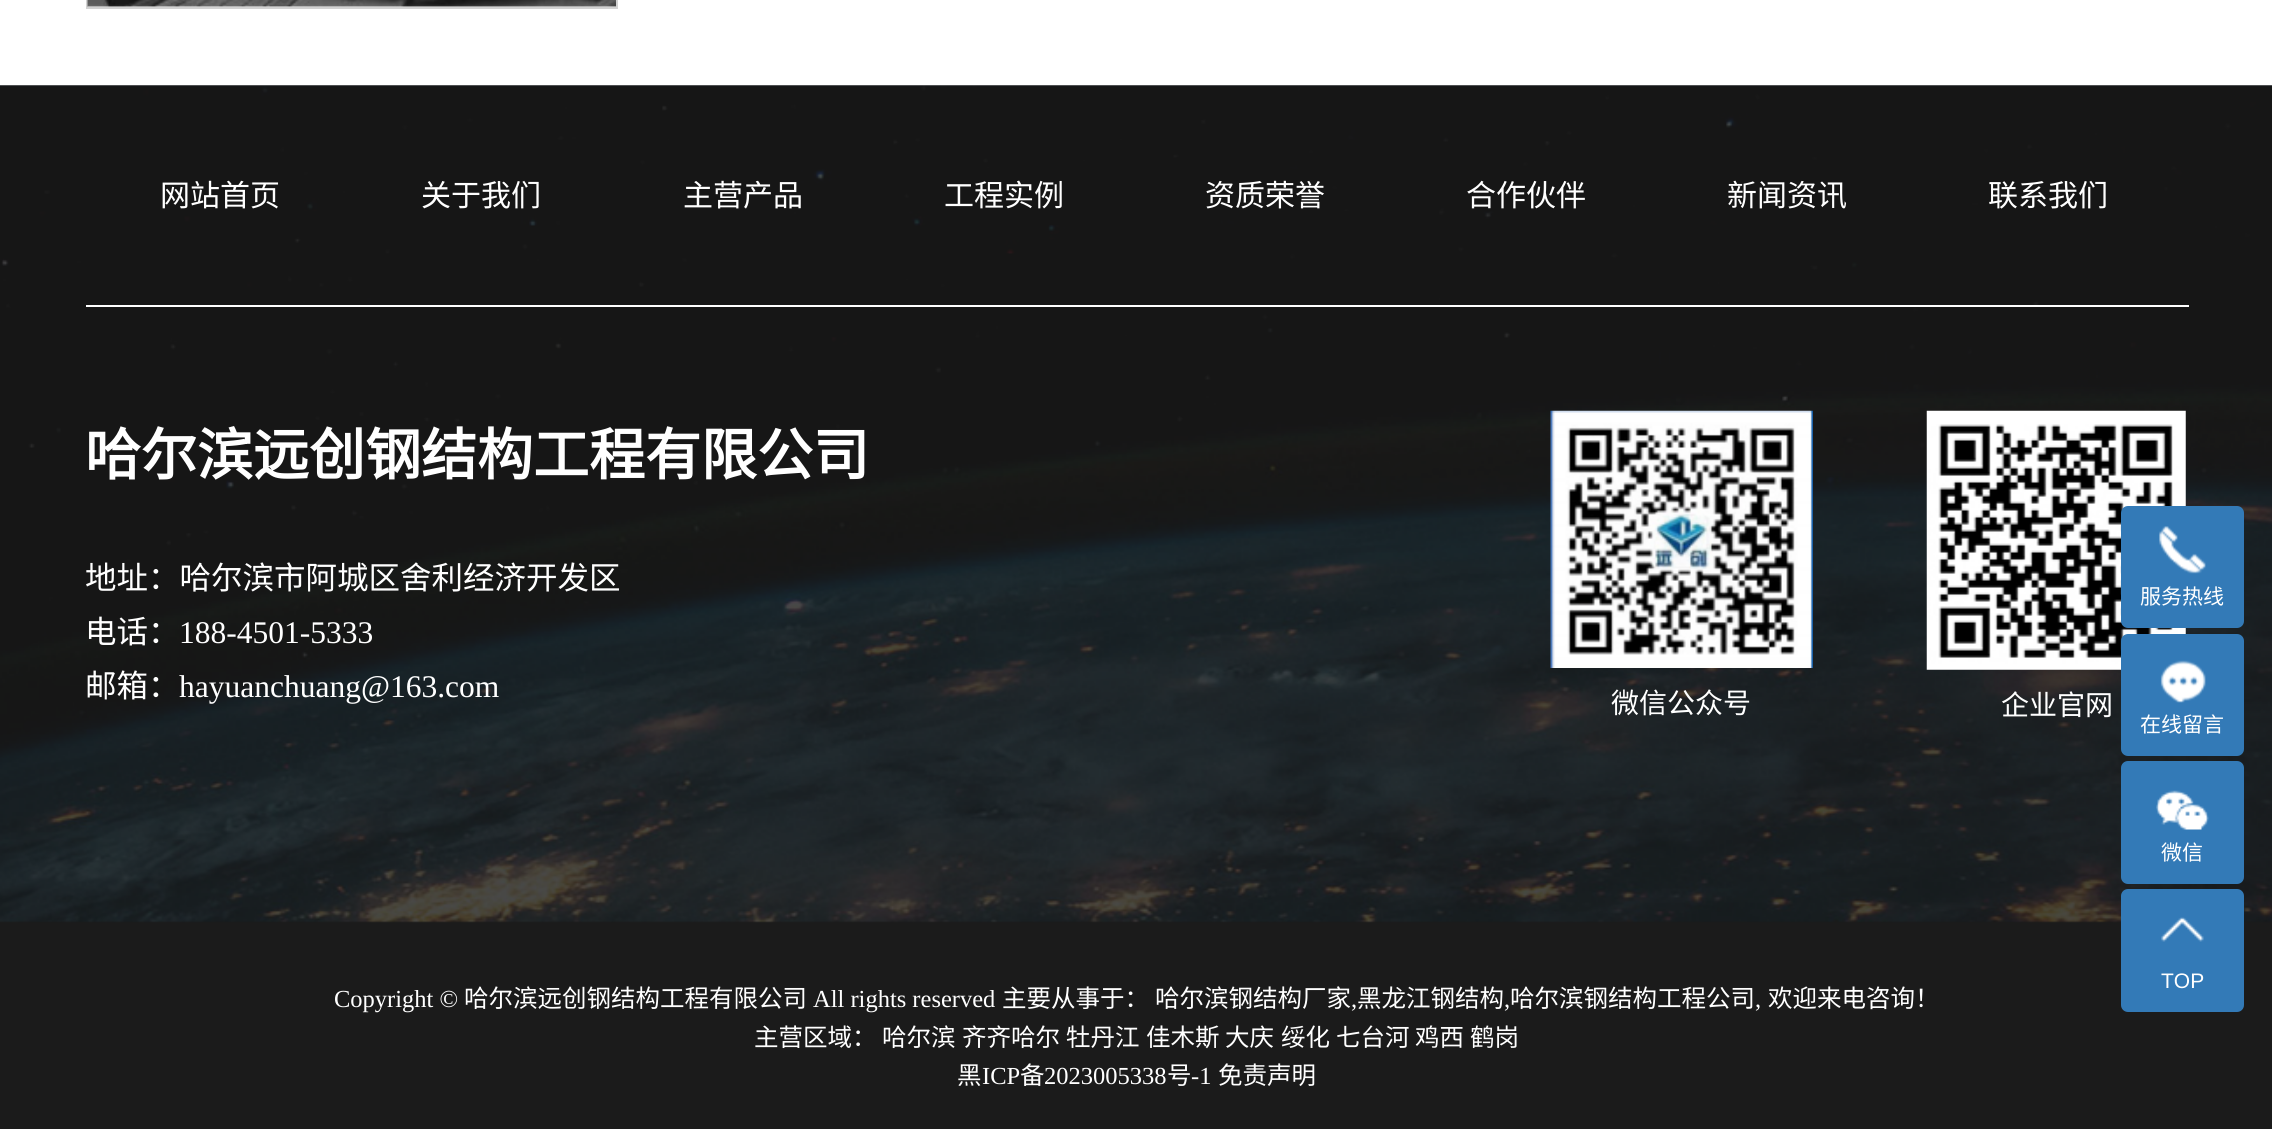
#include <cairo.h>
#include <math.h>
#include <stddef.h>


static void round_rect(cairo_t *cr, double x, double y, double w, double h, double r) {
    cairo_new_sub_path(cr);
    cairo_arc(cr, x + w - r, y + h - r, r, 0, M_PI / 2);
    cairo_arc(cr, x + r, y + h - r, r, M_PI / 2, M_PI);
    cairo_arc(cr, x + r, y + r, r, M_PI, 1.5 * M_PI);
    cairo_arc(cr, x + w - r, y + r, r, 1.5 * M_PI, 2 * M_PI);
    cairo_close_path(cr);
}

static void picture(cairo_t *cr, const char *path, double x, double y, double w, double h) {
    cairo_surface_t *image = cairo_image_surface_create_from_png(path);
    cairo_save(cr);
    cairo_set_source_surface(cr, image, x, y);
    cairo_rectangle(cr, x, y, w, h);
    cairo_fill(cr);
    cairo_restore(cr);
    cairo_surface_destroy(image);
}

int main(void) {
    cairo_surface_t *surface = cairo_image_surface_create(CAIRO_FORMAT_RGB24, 2272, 1129);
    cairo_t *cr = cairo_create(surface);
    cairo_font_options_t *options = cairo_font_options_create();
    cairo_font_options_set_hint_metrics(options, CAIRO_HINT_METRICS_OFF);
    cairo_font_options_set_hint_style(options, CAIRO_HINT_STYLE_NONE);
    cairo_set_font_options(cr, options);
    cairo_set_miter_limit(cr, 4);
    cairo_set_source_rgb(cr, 1, 1, 1);
    cairo_paint(cr);
    cairo_rectangle(cr, 87, -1, 530, 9);
    cairo_set_source_rgb(cr, 0.824, 0.824, 0.824);
    cairo_stroke(cr);
    picture(cr, "img1.png", 87, 0, 529, 7);
    picture(cr, "img2.png", 0, 85, 2272, 1044);
    cairo_select_font_face(cr, "Noto Sans CJK SC", CAIRO_FONT_SLANT_NORMAL, CAIRO_FONT_WEIGHT_NORMAL);
    cairo_set_font_size(cr, 30);
    cairo_set_source_rgb(cr, 1, 1, 1);
    cairo_move_to(cr, 160, 206);
    cairo_show_text(cr, "网站首页");
    cairo_move_to(cr, 421, 206);
    cairo_show_text(cr, "关于我们");
    cairo_move_to(cr, 683, 206);
    cairo_show_text(cr, "主营产品");
    cairo_move_to(cr, 944, 206);
    cairo_show_text(cr, "工程实例");
    cairo_move_to(cr, 1205, 206);
    cairo_show_text(cr, "资质荣誉");
    cairo_move_to(cr, 1466, 206);
    cairo_show_text(cr, "合作伙伴");
    cairo_move_to(cr, 1727, 206);
    cairo_show_text(cr, "新闻资讯");
    cairo_move_to(cr, 1988, 206);
    cairo_show_text(cr, "联系我们");
    cairo_rectangle(cr, 86, 305, 2103, 2);
    cairo_fill(cr);
    cairo_select_font_face(cr, "Noto Sans CJK SC", CAIRO_FONT_SLANT_NORMAL, CAIRO_FONT_WEIGHT_BOLD);
    cairo_set_font_size(cr, 56);
    cairo_move_to(cr, 85, 475);
    cairo_show_text(cr, "哈尔滨远创钢结构工程有限公司");
    cairo_select_font_face(cr, "Noto Sans CJK SC", CAIRO_FONT_SLANT_NORMAL, CAIRO_FONT_WEIGHT_NORMAL);
    cairo_set_font_size(cr, 31.5);
    cairo_move_to(cr, 85, 589);
    cairo_show_text(cr, "地址：哈尔滨市阿城区舍利经济开发区");
    cairo_move_to(cr, 85, 643);
    cairo_show_text(cr, "电话：");
    cairo_select_font_face(cr, "Liberation Serif", CAIRO_FONT_SLANT_NORMAL, CAIRO_FONT_WEIGHT_NORMAL);
    cairo_move_to(cr, 179, 643);
    cairo_show_text(cr, "188-4501-5333");
    cairo_select_font_face(cr, "Noto Sans CJK SC", CAIRO_FONT_SLANT_NORMAL, CAIRO_FONT_WEIGHT_NORMAL);
    cairo_move_to(cr, 85, 697);
    cairo_show_text(cr, "邮箱：");
    cairo_select_font_face(cr, "Liberation Serif", CAIRO_FONT_SLANT_NORMAL, CAIRO_FONT_WEIGHT_NORMAL);
    cairo_move_to(cr, 179, 697);
    cairo_show_text(cr, "hayuanchuang@163.com");
    picture(cr, "img3.png", 1550, 410, 263, 258);
    cairo_select_font_face(cr, "Noto Sans CJK SC", CAIRO_FONT_SLANT_NORMAL, CAIRO_FONT_WEIGHT_NORMAL);
    cairo_set_font_size(cr, 28);
    cairo_move_to(cr, 1611, 713);
    cairo_show_text(cr, "微信公众号");
    picture(cr, "img4.png", 1926, 410, 260, 260);
    cairo_move_to(cr, 2001, 715);
    cairo_show_text(cr, "企业官网");
    cairo_select_font_face(cr, "Liberation Serif", CAIRO_FONT_SLANT_NORMAL, CAIRO_FONT_WEIGHT_NORMAL);
    cairo_set_font_size(cr, 24.5);
    cairo_move_to(cr, 334, 1007);
    cairo_show_text(cr, "Copyright ©");
    cairo_select_font_face(cr, "Noto Sans CJK SC", CAIRO_FONT_SLANT_NORMAL, CAIRO_FONT_WEIGHT_NORMAL);
    cairo_move_to(cr, 464, 1007);
    cairo_show_text(cr, "哈尔滨远创钢结构工程有限公司");
    cairo_select_font_face(cr, "Liberation Serif", CAIRO_FONT_SLANT_NORMAL, CAIRO_FONT_WEIGHT_NORMAL);
    cairo_move_to(cr, 813, 1007);
    cairo_show_text(cr, "All rights reserved");
    cairo_select_font_face(cr, "Noto Sans CJK SC", CAIRO_FONT_SLANT_NORMAL, CAIRO_FONT_WEIGHT_NORMAL);
    cairo_move_to(cr, 1002, 1007);
    cairo_show_text(cr, "主要从事于：");
    cairo_move_to(cr, 1155, 1007);
    cairo_show_text(cr, "哈尔滨钢结构厂家");
    cairo_select_font_face(cr, "Liberation Serif", CAIRO_FONT_SLANT_NORMAL, CAIRO_FONT_WEIGHT_NORMAL);
    cairo_move_to(cr, 1351, 1007);
    cairo_show_text(cr, ",");
    cairo_select_font_face(cr, "Noto Sans CJK SC", CAIRO_FONT_SLANT_NORMAL, CAIRO_FONT_WEIGHT_NORMAL);
    cairo_move_to(cr, 1357, 1007);
    cairo_show_text(cr, "黑龙江钢结构");
    cairo_select_font_face(cr, "Liberation Serif", CAIRO_FONT_SLANT_NORMAL, CAIRO_FONT_WEIGHT_NORMAL);
    cairo_move_to(cr, 1504, 1007);
    cairo_show_text(cr, ",");
    cairo_select_font_face(cr, "Noto Sans CJK SC", CAIRO_FONT_SLANT_NORMAL, CAIRO_FONT_WEIGHT_NORMAL);
    cairo_move_to(cr, 1510, 1007);
    cairo_show_text(cr, "哈尔滨钢结构工程公司");
    cairo_select_font_face(cr, "Liberation Serif", CAIRO_FONT_SLANT_NORMAL, CAIRO_FONT_WEIGHT_NORMAL);
    cairo_move_to(cr, 1755, 1007);
    cairo_show_text(cr, ",");
    cairo_select_font_face(cr, "Noto Sans CJK SC", CAIRO_FONT_SLANT_NORMAL, CAIRO_FONT_WEIGHT_NORMAL);
    cairo_move_to(cr, 1768, 1007);
    cairo_show_text(cr, "欢迎来电咨询！");
    cairo_move_to(cr, 754, 1046);
    cairo_show_text(cr, "主营区域：");
    cairo_move_to(cr, 882, 1046);
    cairo_show_text(cr, "哈尔滨");
    cairo_move_to(cr, 962, 1046);
    cairo_show_text(cr, "齐齐哈尔");
    cairo_move_to(cr, 1066, 1046);
    cairo_show_text(cr, "牡丹江");
    cairo_move_to(cr, 1146, 1046);
    cairo_show_text(cr, "佳木斯");
    cairo_move_to(cr, 1225, 1046);
    cairo_show_text(cr, "大庆");
    cairo_move_to(cr, 1281, 1046);
    cairo_show_text(cr, "绥化");
    cairo_move_to(cr, 1336, 1046);
    cairo_show_text(cr, "七台河");
    cairo_move_to(cr, 1415, 1046);
    cairo_show_text(cr, "鸡西");
    cairo_move_to(cr, 1470, 1046);
    cairo_show_text(cr, "鹤岗");
    cairo_move_to(cr, 957, 1084);
    cairo_show_text(cr, "黑");
    cairo_select_font_face(cr, "Liberation Serif", CAIRO_FONT_SLANT_NORMAL, CAIRO_FONT_WEIGHT_NORMAL);
    cairo_move_to(cr, 982, 1084);
    cairo_show_text(cr, "ICP");
    cairo_select_font_face(cr, "Noto Sans CJK SC", CAIRO_FONT_SLANT_NORMAL, CAIRO_FONT_WEIGHT_NORMAL);
    cairo_move_to(cr, 1020, 1084);
    cairo_show_text(cr, "备");
    cairo_select_font_face(cr, "Liberation Serif", CAIRO_FONT_SLANT_NORMAL, CAIRO_FONT_WEIGHT_NORMAL);
    cairo_move_to(cr, 1044, 1084);
    cairo_show_text(cr, "2023005338");
    cairo_select_font_face(cr, "Noto Sans CJK SC", CAIRO_FONT_SLANT_NORMAL, CAIRO_FONT_WEIGHT_NORMAL);
    cairo_move_to(cr, 1167, 1084);
    cairo_show_text(cr, "号");
    cairo_select_font_face(cr, "Liberation Serif", CAIRO_FONT_SLANT_NORMAL, CAIRO_FONT_WEIGHT_NORMAL);
    cairo_move_to(cr, 1191, 1084);
    cairo_show_text(cr, "-1");
    cairo_select_font_face(cr, "Noto Sans CJK SC", CAIRO_FONT_SLANT_NORMAL, CAIRO_FONT_WEIGHT_NORMAL);
    cairo_move_to(cr, 1218, 1084);
    cairo_show_text(cr, "免责声明");
    cairo_set_source_rgb(cr, 0.2, 0.478, 0.718);
    round_rect(cr, 2121, 506, 123, 122, 7);
    cairo_fill(cr);
    picture(cr, "img5.png", 2159, 526, 47, 48);
    cairo_set_font_size(cr, 21);
    cairo_set_source_rgb(cr, 1, 1, 1);
    cairo_move_to(cr, 2140, 604);
    cairo_show_text(cr, "服务热线");
    cairo_set_source_rgb(cr, 0.2, 0.478, 0.718);
    round_rect(cr, 2121, 634, 123, 122, 7);
    cairo_fill(cr);
    picture(cr, "img6.png", 2160, 660, 46, 43);
    cairo_set_source_rgb(cr, 1, 1, 1);
    cairo_move_to(cr, 2140, 732);
    cairo_show_text(cr, "在线留言");
    cairo_set_source_rgb(cr, 0.2, 0.478, 0.718);
    round_rect(cr, 2121, 761, 123, 123, 7);
    cairo_fill(cr);
    picture(cr, "img7.png", 2156, 790, 53, 40);
    cairo_set_source_rgb(cr, 1, 1, 1);
    cairo_move_to(cr, 2161, 860);
    cairo_show_text(cr, "微信");
    cairo_set_source_rgb(cr, 0.2, 0.478, 0.718);
    round_rect(cr, 2121, 889, 123, 123, 7);
    cairo_fill(cr);
    picture(cr, "img8.png", 2161, 917, 43, 25);
    cairo_select_font_face(cr, "Liberation Sans", CAIRO_FONT_SLANT_NORMAL, CAIRO_FONT_WEIGHT_NORMAL);
    cairo_set_source_rgb(cr, 1, 1, 1);
    cairo_move_to(cr, 2161, 988);
    cairo_show_text(cr, "TOP");
    cairo_surface_write_to_png(surface, "page.png");
    cairo_font_options_destroy(options);
    cairo_destroy(cr);
    cairo_surface_destroy(surface);
    return 0;
}
